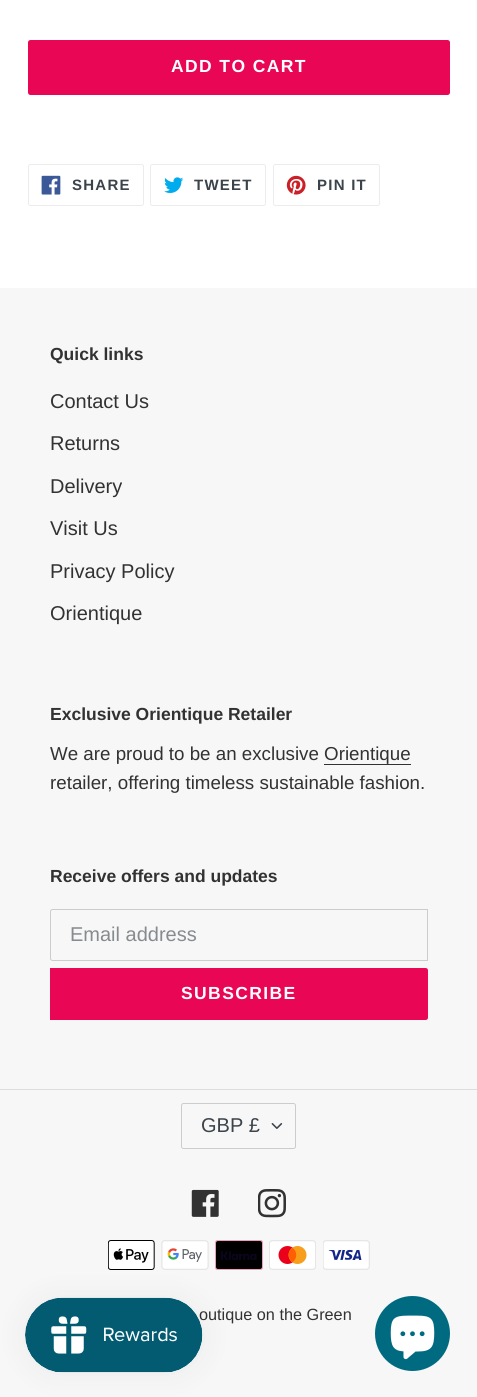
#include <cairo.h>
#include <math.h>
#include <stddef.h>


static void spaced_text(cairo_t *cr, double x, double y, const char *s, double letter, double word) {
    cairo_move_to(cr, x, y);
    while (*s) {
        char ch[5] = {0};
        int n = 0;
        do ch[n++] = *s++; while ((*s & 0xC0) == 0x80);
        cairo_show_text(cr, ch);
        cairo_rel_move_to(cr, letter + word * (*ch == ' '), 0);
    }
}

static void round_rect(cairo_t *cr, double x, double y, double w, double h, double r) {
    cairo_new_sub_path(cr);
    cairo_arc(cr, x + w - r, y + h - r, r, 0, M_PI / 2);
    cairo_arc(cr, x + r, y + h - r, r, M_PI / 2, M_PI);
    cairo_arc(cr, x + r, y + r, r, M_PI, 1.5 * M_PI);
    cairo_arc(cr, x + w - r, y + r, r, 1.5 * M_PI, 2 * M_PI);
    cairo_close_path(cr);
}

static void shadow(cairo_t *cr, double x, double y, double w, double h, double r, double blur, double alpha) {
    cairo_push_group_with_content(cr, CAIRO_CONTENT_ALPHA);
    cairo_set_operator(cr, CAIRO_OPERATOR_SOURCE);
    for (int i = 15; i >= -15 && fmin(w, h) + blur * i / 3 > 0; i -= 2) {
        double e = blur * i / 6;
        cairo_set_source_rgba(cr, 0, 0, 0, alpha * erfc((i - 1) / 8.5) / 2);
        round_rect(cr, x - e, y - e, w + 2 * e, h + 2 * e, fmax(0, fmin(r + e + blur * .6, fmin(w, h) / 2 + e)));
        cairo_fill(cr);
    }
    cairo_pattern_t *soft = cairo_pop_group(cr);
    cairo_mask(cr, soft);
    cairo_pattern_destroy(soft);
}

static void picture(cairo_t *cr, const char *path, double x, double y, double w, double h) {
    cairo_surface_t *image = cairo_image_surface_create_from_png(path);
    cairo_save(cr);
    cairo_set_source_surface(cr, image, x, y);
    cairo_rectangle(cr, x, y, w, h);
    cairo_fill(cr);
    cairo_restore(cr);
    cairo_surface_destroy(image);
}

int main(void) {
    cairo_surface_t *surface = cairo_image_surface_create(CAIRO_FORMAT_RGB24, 477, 1397);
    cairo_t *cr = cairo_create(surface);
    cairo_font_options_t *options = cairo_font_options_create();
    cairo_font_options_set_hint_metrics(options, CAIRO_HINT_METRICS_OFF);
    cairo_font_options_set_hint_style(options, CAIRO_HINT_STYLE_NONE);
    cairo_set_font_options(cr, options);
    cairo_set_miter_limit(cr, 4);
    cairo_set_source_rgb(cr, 1, 1, 1);
    cairo_paint(cr);
    cairo_set_source_rgb(cr, 0.914, 0.027, 0.329);
    round_rect(cr, 28, 40, 422, 55, 2.5);
    cairo_fill(cr);
    cairo_select_font_face(cr, "Liberation Sans", CAIRO_FONT_SLANT_NORMAL, CAIRO_FONT_WEIGHT_BOLD);
    cairo_set_font_size(cr, 17.5);
    cairo_set_source_rgb(cr, 1, 1, 1);
    spaced_text(cr, 171, 72, "ADD TO CART", 1.4, 0);
    round_rect(cr, 28.5, 164.5, 115, 41, 2);
    cairo_set_source_rgb(cr, 0.922, 0.922, 0.922);
    cairo_set_line_width(cr, 1);
    cairo_stroke(cr);
    picture(cr, "img1.png", 41, 175, 20, 20);
    cairo_set_font_size(cr, 15);
    cairo_set_source_rgb(cr, 0.231, 0.267, 0.294);
    spaced_text(cr, 72, 190, "SHARE", 1.25, 0);
    round_rect(cr, 150.5, 164.5, 115, 41, 2);
    cairo_set_source_rgb(cr, 0.922, 0.922, 0.922);
    cairo_stroke(cr);
    picture(cr, "img2.png", 164, 177, 20, 16);
    cairo_set_source_rgb(cr, 0.231, 0.267, 0.294);
    spaced_text(cr, 194, 190, "TWEET", 1.25, 0);
    round_rect(cr, 273.5, 164.5, 106, 41, 2);
    cairo_set_source_rgb(cr, 0.922, 0.922, 0.922);
    cairo_stroke(cr);
    picture(cr, "img3.png", 286, 175, 20, 20);
    cairo_set_source_rgb(cr, 0.231, 0.267, 0.294);
    spaced_text(cr, 317, 190, "PIN IT", 1.25, 0);
    cairo_set_source_rgb(cr, 0.965, 0.965, 0.965);
    cairo_rectangle(cr, 0, 288, 477, 1109);
    cairo_fill(cr);
    cairo_set_font_size(cr, 17.5);
    cairo_set_source_rgb(cr, 0.2, 0.196, 0.196);
    cairo_move_to(cr, 50, 360);
    cairo_show_text(cr, "Quick links");
    cairo_select_font_face(cr, "Liberation Sans", CAIRO_FONT_SLANT_NORMAL, CAIRO_FONT_WEIGHT_NORMAL);
    cairo_set_font_size(cr, 20);
    cairo_move_to(cr, 50, 408);
    cairo_show_text(cr, "Contact Us");
    cairo_move_to(cr, 50, 450);
    cairo_show_text(cr, "Returns");
    cairo_move_to(cr, 50, 493);
    cairo_show_text(cr, "Delivery");
    cairo_move_to(cr, 50, 535);
    cairo_show_text(cr, "Visit Us");
    cairo_move_to(cr, 50, 578);
    cairo_show_text(cr, "Privacy Policy");
    cairo_move_to(cr, 50, 620);
    cairo_show_text(cr, "Orientique");
    cairo_select_font_face(cr, "Liberation Sans", CAIRO_FONT_SLANT_NORMAL, CAIRO_FONT_WEIGHT_BOLD);
    cairo_set_font_size(cr, 17.5);
    cairo_move_to(cr, 50, 720);
    cairo_show_text(cr, "Exclusive Orientique Retailer");
    cairo_select_font_face(cr, "Liberation Sans", CAIRO_FONT_SLANT_NORMAL, CAIRO_FONT_WEIGHT_NORMAL);
    cairo_set_font_size(cr, 18.75);
    cairo_move_to(cr, 50, 760);
    cairo_show_text(cr, "We are proud to be an exclusive Orientique");
    cairo_rectangle(cr, 324, 764, 87, 1);
    cairo_fill(cr);
    cairo_move_to(cr, 50, 789);
    cairo_show_text(cr, "retailer, offering timeless sustainable fashion.");
    cairo_select_font_face(cr, "Liberation Sans", CAIRO_FONT_SLANT_NORMAL, CAIRO_FONT_WEIGHT_BOLD);
    cairo_set_font_size(cr, 17.5);
    cairo_move_to(cr, 50, 882);
    cairo_show_text(cr, "Receive offers and updates");
    cairo_new_path(cr);
    cairo_move_to(cr, 52.5, 909.5);
    cairo_line_to(cr, 427.5, 909.5);
    cairo_line_to(cr, 427.5, 960.5);
    cairo_line_to(cr, 52.5, 960.5);
    cairo_curve_to(cr, 51.5, 960.5, 50.5, 959.5, 50.5, 958.5);
    cairo_line_to(cr, 50.5, 911.5);
    cairo_curve_to(cr, 50.5, 910.5, 51.5, 909.5, 52.5, 909.5);
    cairo_close_path(cr);
    cairo_set_source_rgb(cr, 0.8, 0.8, 0.8);
    cairo_stroke(cr);
    cairo_select_font_face(cr, "Liberation Sans", CAIRO_FONT_SLANT_NORMAL, CAIRO_FONT_WEIGHT_NORMAL);
    cairo_set_font_size(cr, 20);
    cairo_set_source_rgb(cr, 0.525, 0.545, 0.561);
    cairo_move_to(cr, 70, 941);
    cairo_show_text(cr, "Email address");
    cairo_set_source_rgb(cr, 0.914, 0.027, 0.329);
    cairo_new_path(cr);
    cairo_move_to(cr, 50, 968);
    cairo_line_to(cr, 425.5, 968);
    cairo_curve_to(cr, 427, 968, 428, 969, 428, 970.5);
    cairo_line_to(cr, 428, 1017.5);
    cairo_curve_to(cr, 428, 1019, 427, 1020, 425.5, 1020);
    cairo_line_to(cr, 50, 1020);
    cairo_close_path(cr);
    cairo_fill(cr);
    cairo_select_font_face(cr, "Liberation Sans", CAIRO_FONT_SLANT_NORMAL, CAIRO_FONT_WEIGHT_BOLD);
    cairo_set_font_size(cr, 17.5);
    cairo_set_source_rgb(cr, 1, 1, 1);
    spaced_text(cr, 181, 999, "SUBSCRIBE", 1.4, 0);
    cairo_set_source_rgb(cr, 0.867, 0.867, 0.867);
    cairo_rectangle(cr, 0, 1089, 477, 1);
    cairo_fill(cr);
    picture(cr, "img4.png", 271, 1123, 12, 6);
    round_rect(cr, 181.5, 1103.5, 114, 45, 2);
    cairo_set_source_rgb(cr, 0.8, 0.8, 0.8);
    cairo_stroke(cr);
    cairo_select_font_face(cr, "Liberation Sans", CAIRO_FONT_SLANT_NORMAL, CAIRO_FONT_WEIGHT_NORMAL);
    cairo_set_font_size(cr, 20);
    cairo_set_source_rgb(cr, 0.231, 0.267, 0.294);
    cairo_move_to(cr, 201, 1132);
    cairo_show_text(cr, "GBP £");
    picture(cr, "img5.png", 191, 1189, 28, 28);
    picture(cr, "img6.png", 258, 1189, 28, 29);
    picture(cr, "img7.png", 108, 1240, 47, 30);
    picture(cr, "img8.png", 161, 1240, 48, 30);
    picture(cr, "img9.png", 215, 1240, 48, 30);
    picture(cr, "img10.png", 269, 1240, 47, 30);
    picture(cr, "img11.png", 323, 1240, 47, 30);
    cairo_set_font_size(cr, 16.25);
    cairo_set_source_rgb(cr, 0.2, 0.196, 0.196);
    cairo_move_to(cr, 199, 1320);
    cairo_show_text(cr, "outique on the Green");
    cairo_set_source_rgb(cr, 0, 0, 0);
    shadow(cr, 25, 1298, 178, 75, 37.5, 15.5, 0.05);
    picture(cr, "img12.png", 25, 1297, 178, 76);
    cairo_set_source_rgb(cr, 0, 0.416, 0.506);
    cairo_arc(cr, 412.5, 1333.5, 37.5, 0, 2 * M_PI);
    cairo_fill(cr);
    picture(cr, "img13.png", 390, 1315, 45, 45);
    cairo_surface_write_to_png(surface, "page.png");
    cairo_font_options_destroy(options);
    cairo_destroy(cr);
    cairo_surface_destroy(surface);
    return 0;
}
